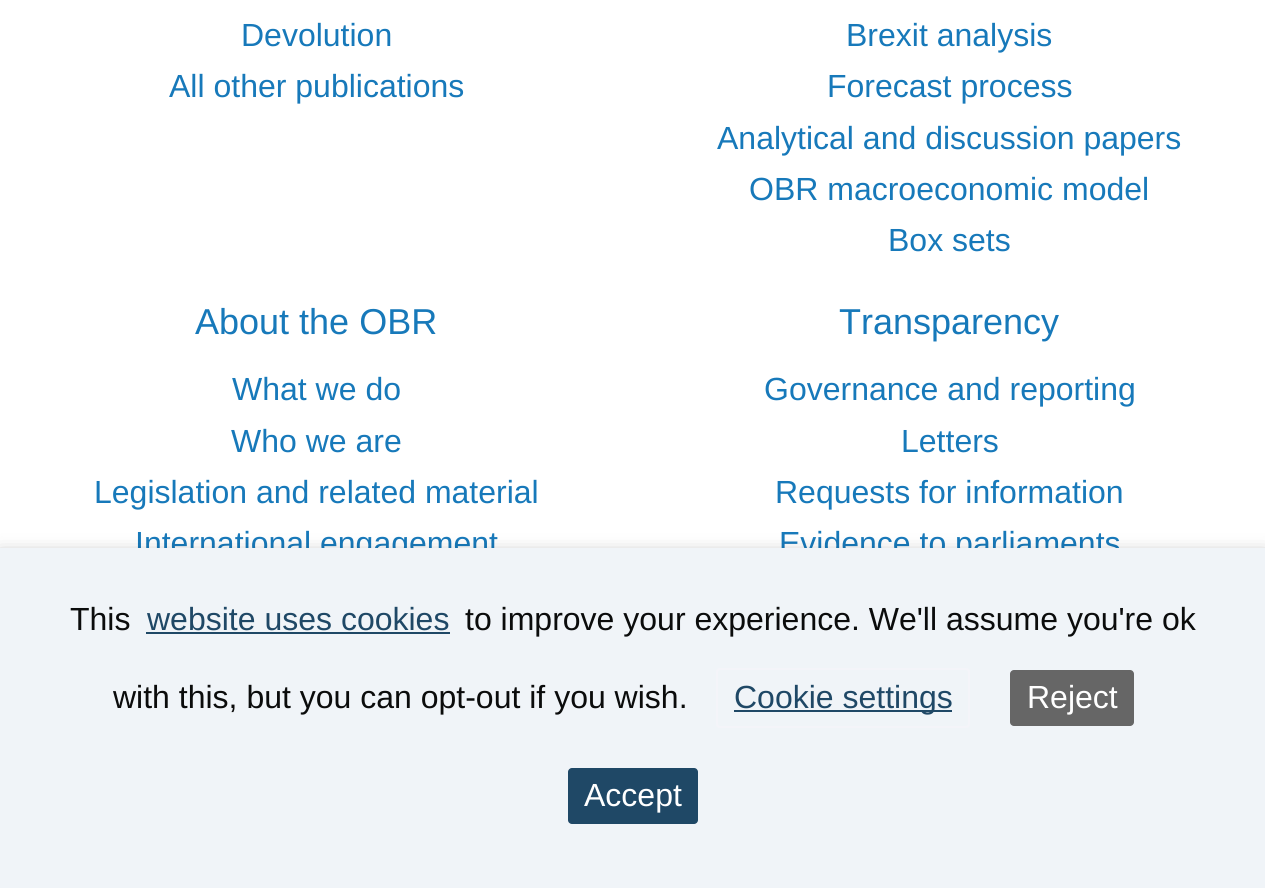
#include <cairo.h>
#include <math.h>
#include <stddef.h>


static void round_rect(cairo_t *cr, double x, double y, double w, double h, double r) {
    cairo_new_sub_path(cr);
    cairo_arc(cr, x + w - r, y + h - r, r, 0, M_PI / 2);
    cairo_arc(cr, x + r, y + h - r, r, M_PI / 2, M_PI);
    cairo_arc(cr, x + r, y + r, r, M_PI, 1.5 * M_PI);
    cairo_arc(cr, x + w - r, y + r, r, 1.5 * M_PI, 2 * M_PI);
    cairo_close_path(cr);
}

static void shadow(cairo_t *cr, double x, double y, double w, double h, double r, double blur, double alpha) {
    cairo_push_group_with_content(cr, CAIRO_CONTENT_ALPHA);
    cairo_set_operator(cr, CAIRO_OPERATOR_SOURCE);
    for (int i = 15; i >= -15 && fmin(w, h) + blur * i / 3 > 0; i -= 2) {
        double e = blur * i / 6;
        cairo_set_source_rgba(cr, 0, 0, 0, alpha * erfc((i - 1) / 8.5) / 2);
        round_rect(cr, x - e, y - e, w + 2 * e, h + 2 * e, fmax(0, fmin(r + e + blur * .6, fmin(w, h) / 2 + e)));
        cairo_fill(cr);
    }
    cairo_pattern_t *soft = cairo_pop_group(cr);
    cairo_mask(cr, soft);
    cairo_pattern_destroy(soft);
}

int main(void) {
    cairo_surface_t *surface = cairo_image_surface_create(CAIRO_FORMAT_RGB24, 1265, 888);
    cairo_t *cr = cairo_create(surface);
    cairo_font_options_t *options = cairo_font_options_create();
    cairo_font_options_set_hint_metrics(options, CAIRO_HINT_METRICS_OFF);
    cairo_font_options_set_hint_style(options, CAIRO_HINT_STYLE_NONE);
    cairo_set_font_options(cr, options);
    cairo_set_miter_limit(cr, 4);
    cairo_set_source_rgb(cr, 1, 1, 1);
    cairo_paint(cr);
    cairo_select_font_face(cr, "Liberation Sans", CAIRO_FONT_SLANT_NORMAL, CAIRO_FONT_WEIGHT_NORMAL);
    cairo_set_font_size(cr, 32);
    cairo_set_source_rgb(cr, 0.09, 0.475, 0.729);
    cairo_move_to(cr, 241, 46);
    cairo_show_text(cr, "Devolution");
    cairo_move_to(cr, 169, 97);
    cairo_show_text(cr, "All other publications");
    cairo_move_to(cr, 846, 46);
    cairo_show_text(cr, "Brexit analysis");
    cairo_move_to(cr, 827, 97);
    cairo_show_text(cr, "Forecast process");
    cairo_move_to(cr, 717, 149);
    cairo_show_text(cr, "Analytical and discussion papers");
    cairo_move_to(cr, 749, 200);
    cairo_show_text(cr, "OBR macroeconomic model");
    cairo_move_to(cr, 888, 251);
    cairo_show_text(cr, "Box sets");
    cairo_set_font_size(cr, 36);
    cairo_move_to(cr, 195, 334);
    cairo_show_text(cr, "About the OBR");
    cairo_set_font_size(cr, 32);
    cairo_move_to(cr, 232, 400);
    cairo_show_text(cr, "What we do");
    cairo_move_to(cr, 231, 452);
    cairo_show_text(cr, "Who we are");
    cairo_move_to(cr, 94, 503);
    cairo_show_text(cr, "Legislation and related material");
    cairo_move_to(cr, 135, 554);
    cairo_show_text(cr, "International engagement");
    cairo_set_font_size(cr, 36);
    cairo_move_to(cr, 839, 334);
    cairo_show_text(cr, "Transparency");
    cairo_set_font_size(cr, 32);
    cairo_move_to(cr, 764, 400);
    cairo_show_text(cr, "Governance and reporting");
    cairo_move_to(cr, 901, 452);
    cairo_show_text(cr, "Letters");
    cairo_move_to(cr, 775, 503);
    cairo_show_text(cr, "Requests for information");
    cairo_move_to(cr, 779, 554);
    cairo_show_text(cr, "Evidence to parliaments");
    cairo_set_source_rgb(cr, 0, 0, 0);
    shadow(cr, 0, 558, 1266, 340, 0, 10, 0.5);
    cairo_set_source_rgb(cr, 0.941, 0.957, 0.969);
    cairo_rectangle(cr, 0, 548, 1265, 340);
    cairo_fill(cr);
    cairo_set_source_rgb(cr, 0.043, 0.047, 0.047);
    cairo_move_to(cr, 70, 630);
    cairo_show_text(cr, "This");
    cairo_set_source_rgb(cr, 0.122, 0.282, 0.4);
    cairo_move_to(cr, 147, 630);
    cairo_show_text(cr, "website uses cookies");
    cairo_rectangle(cr, 146, 632, 304, 2);
    cairo_fill(cr);
    cairo_set_source_rgb(cr, 0.043, 0.047, 0.047);
    cairo_move_to(cr, 465, 630);
    cairo_show_text(cr, "to improve your experience. We'll assume you're ok");
    cairo_move_to(cr, 113, 708);
    cairo_show_text(cr, "with this, but you can opt-out if you wish.");
    round_rect(cr, 717, 669, 252, 58, 3);
    cairo_set_source_rgb(cr, 0.957, 0.957, 0.976);
    cairo_stroke(cr);
    cairo_set_source_rgb(cr, 0.122, 0.282, 0.4);
    cairo_rectangle(cr, 734, 710, 218, 2);
    cairo_fill(cr);
    cairo_move_to(cr, 734, 708);
    cairo_show_text(cr, "Cookie settings");
    cairo_set_source_rgb(cr, 0.4, 0.4, 0.4);
    round_rect(cr, 1010, 670, 124, 56, 4);
    cairo_fill(cr);
    cairo_set_source_rgb(cr, 1, 1, 1);
    cairo_move_to(cr, 1027, 708);
    cairo_show_text(cr, "Reject");
    cairo_set_source_rgb(cr, 0.122, 0.282, 0.4);
    round_rect(cr, 568, 768, 130, 56, 4);
    cairo_fill(cr);
    cairo_set_source_rgb(cr, 1, 1, 1);
    cairo_move_to(cr, 584, 806);
    cairo_show_text(cr, "Accept");
    cairo_surface_write_to_png(surface, "page.png");
    cairo_font_options_destroy(options);
    cairo_destroy(cr);
    cairo_surface_destroy(surface);
    return 0;
}
